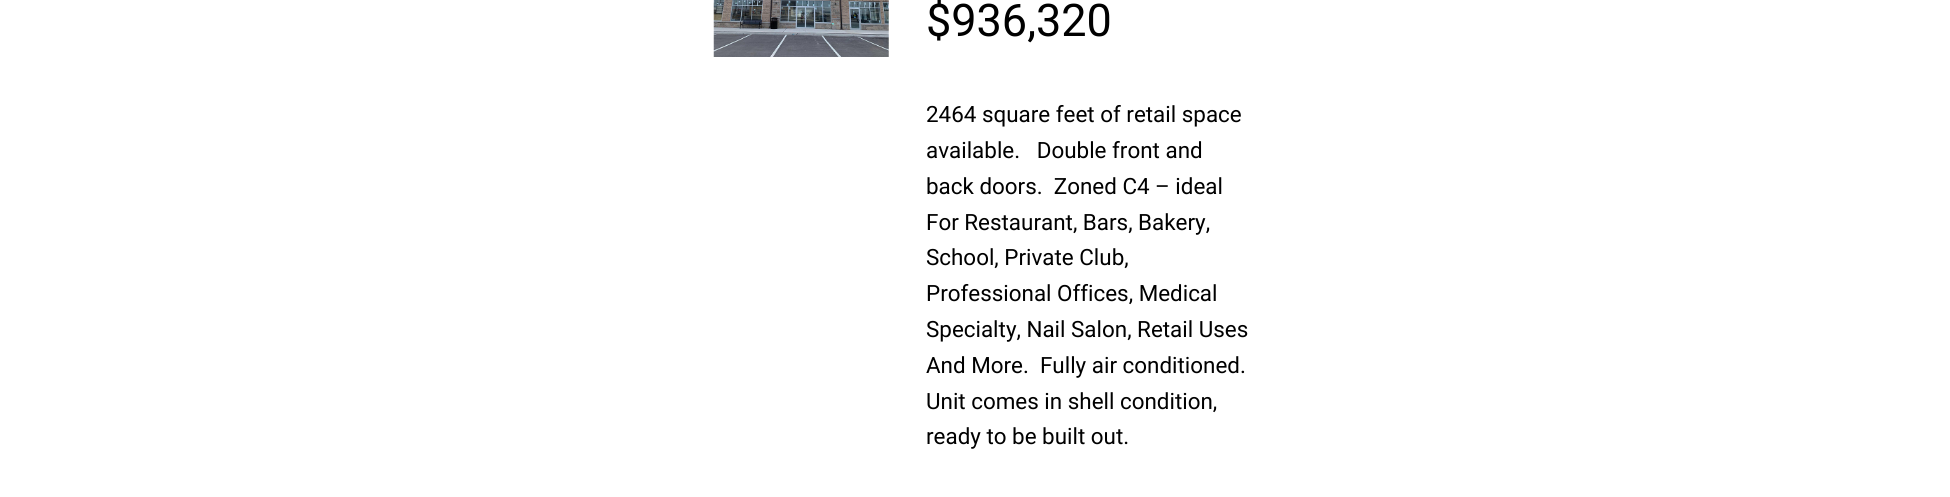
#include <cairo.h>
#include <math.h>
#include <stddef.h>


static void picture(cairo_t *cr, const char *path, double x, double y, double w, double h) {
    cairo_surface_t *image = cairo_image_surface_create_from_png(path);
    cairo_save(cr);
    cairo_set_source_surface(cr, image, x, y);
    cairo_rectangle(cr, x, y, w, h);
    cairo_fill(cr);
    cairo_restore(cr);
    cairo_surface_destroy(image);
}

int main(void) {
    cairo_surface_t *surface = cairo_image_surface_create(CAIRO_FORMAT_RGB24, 1950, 497);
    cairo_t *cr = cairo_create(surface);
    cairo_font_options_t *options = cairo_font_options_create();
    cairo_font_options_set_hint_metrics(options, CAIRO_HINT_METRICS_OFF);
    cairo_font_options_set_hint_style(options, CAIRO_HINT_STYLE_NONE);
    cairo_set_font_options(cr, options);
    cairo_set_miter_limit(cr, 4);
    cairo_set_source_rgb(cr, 1, 1, 1);
    cairo_paint(cr);
    picture(cr, "img1.png", 713, 0, 176, 57);
    cairo_select_font_face(cr, "Roboto", CAIRO_FONT_SLANT_NORMAL, CAIRO_FONT_WEIGHT_NORMAL);
    cairo_set_font_size(cr, 45);
    cairo_set_source_rgb(cr, 0, 0, 0);
    cairo_move_to(cr, 926, 36);
    cairo_show_text(cr, "$936,320");
    cairo_set_font_size(cr, 22.4);
    cairo_move_to(cr, 926, 122);
    cairo_show_text(cr, "2464 square feet of retail space");
    cairo_move_to(cr, 926, 158);
    cairo_show_text(cr, "available.   Double front and");
    cairo_move_to(cr, 926, 194);
    cairo_show_text(cr, "back doors.  Zoned C4 – ideal");
    cairo_move_to(cr, 926, 230);
    cairo_show_text(cr, "For Restaurant, Bars, Bakery,");
    cairo_move_to(cr, 926, 265);
    cairo_show_text(cr, "School, Private Club,");
    cairo_move_to(cr, 926, 301);
    cairo_show_text(cr, "Professional Offices, Medical");
    cairo_move_to(cr, 926, 337);
    cairo_show_text(cr, "Specialty, Nail Salon, Retail Uses");
    cairo_move_to(cr, 926, 373);
    cairo_show_text(cr, "And More.  Fully air conditioned.");
    cairo_move_to(cr, 926, 409);
    cairo_show_text(cr, "Unit comes in shell condition,");
    cairo_move_to(cr, 926, 444);
    cairo_show_text(cr, "ready to be built out.");
    cairo_surface_write_to_png(surface, "page.png");
    cairo_font_options_destroy(options);
    cairo_destroy(cr);
    cairo_surface_destroy(surface);
    return 0;
}
